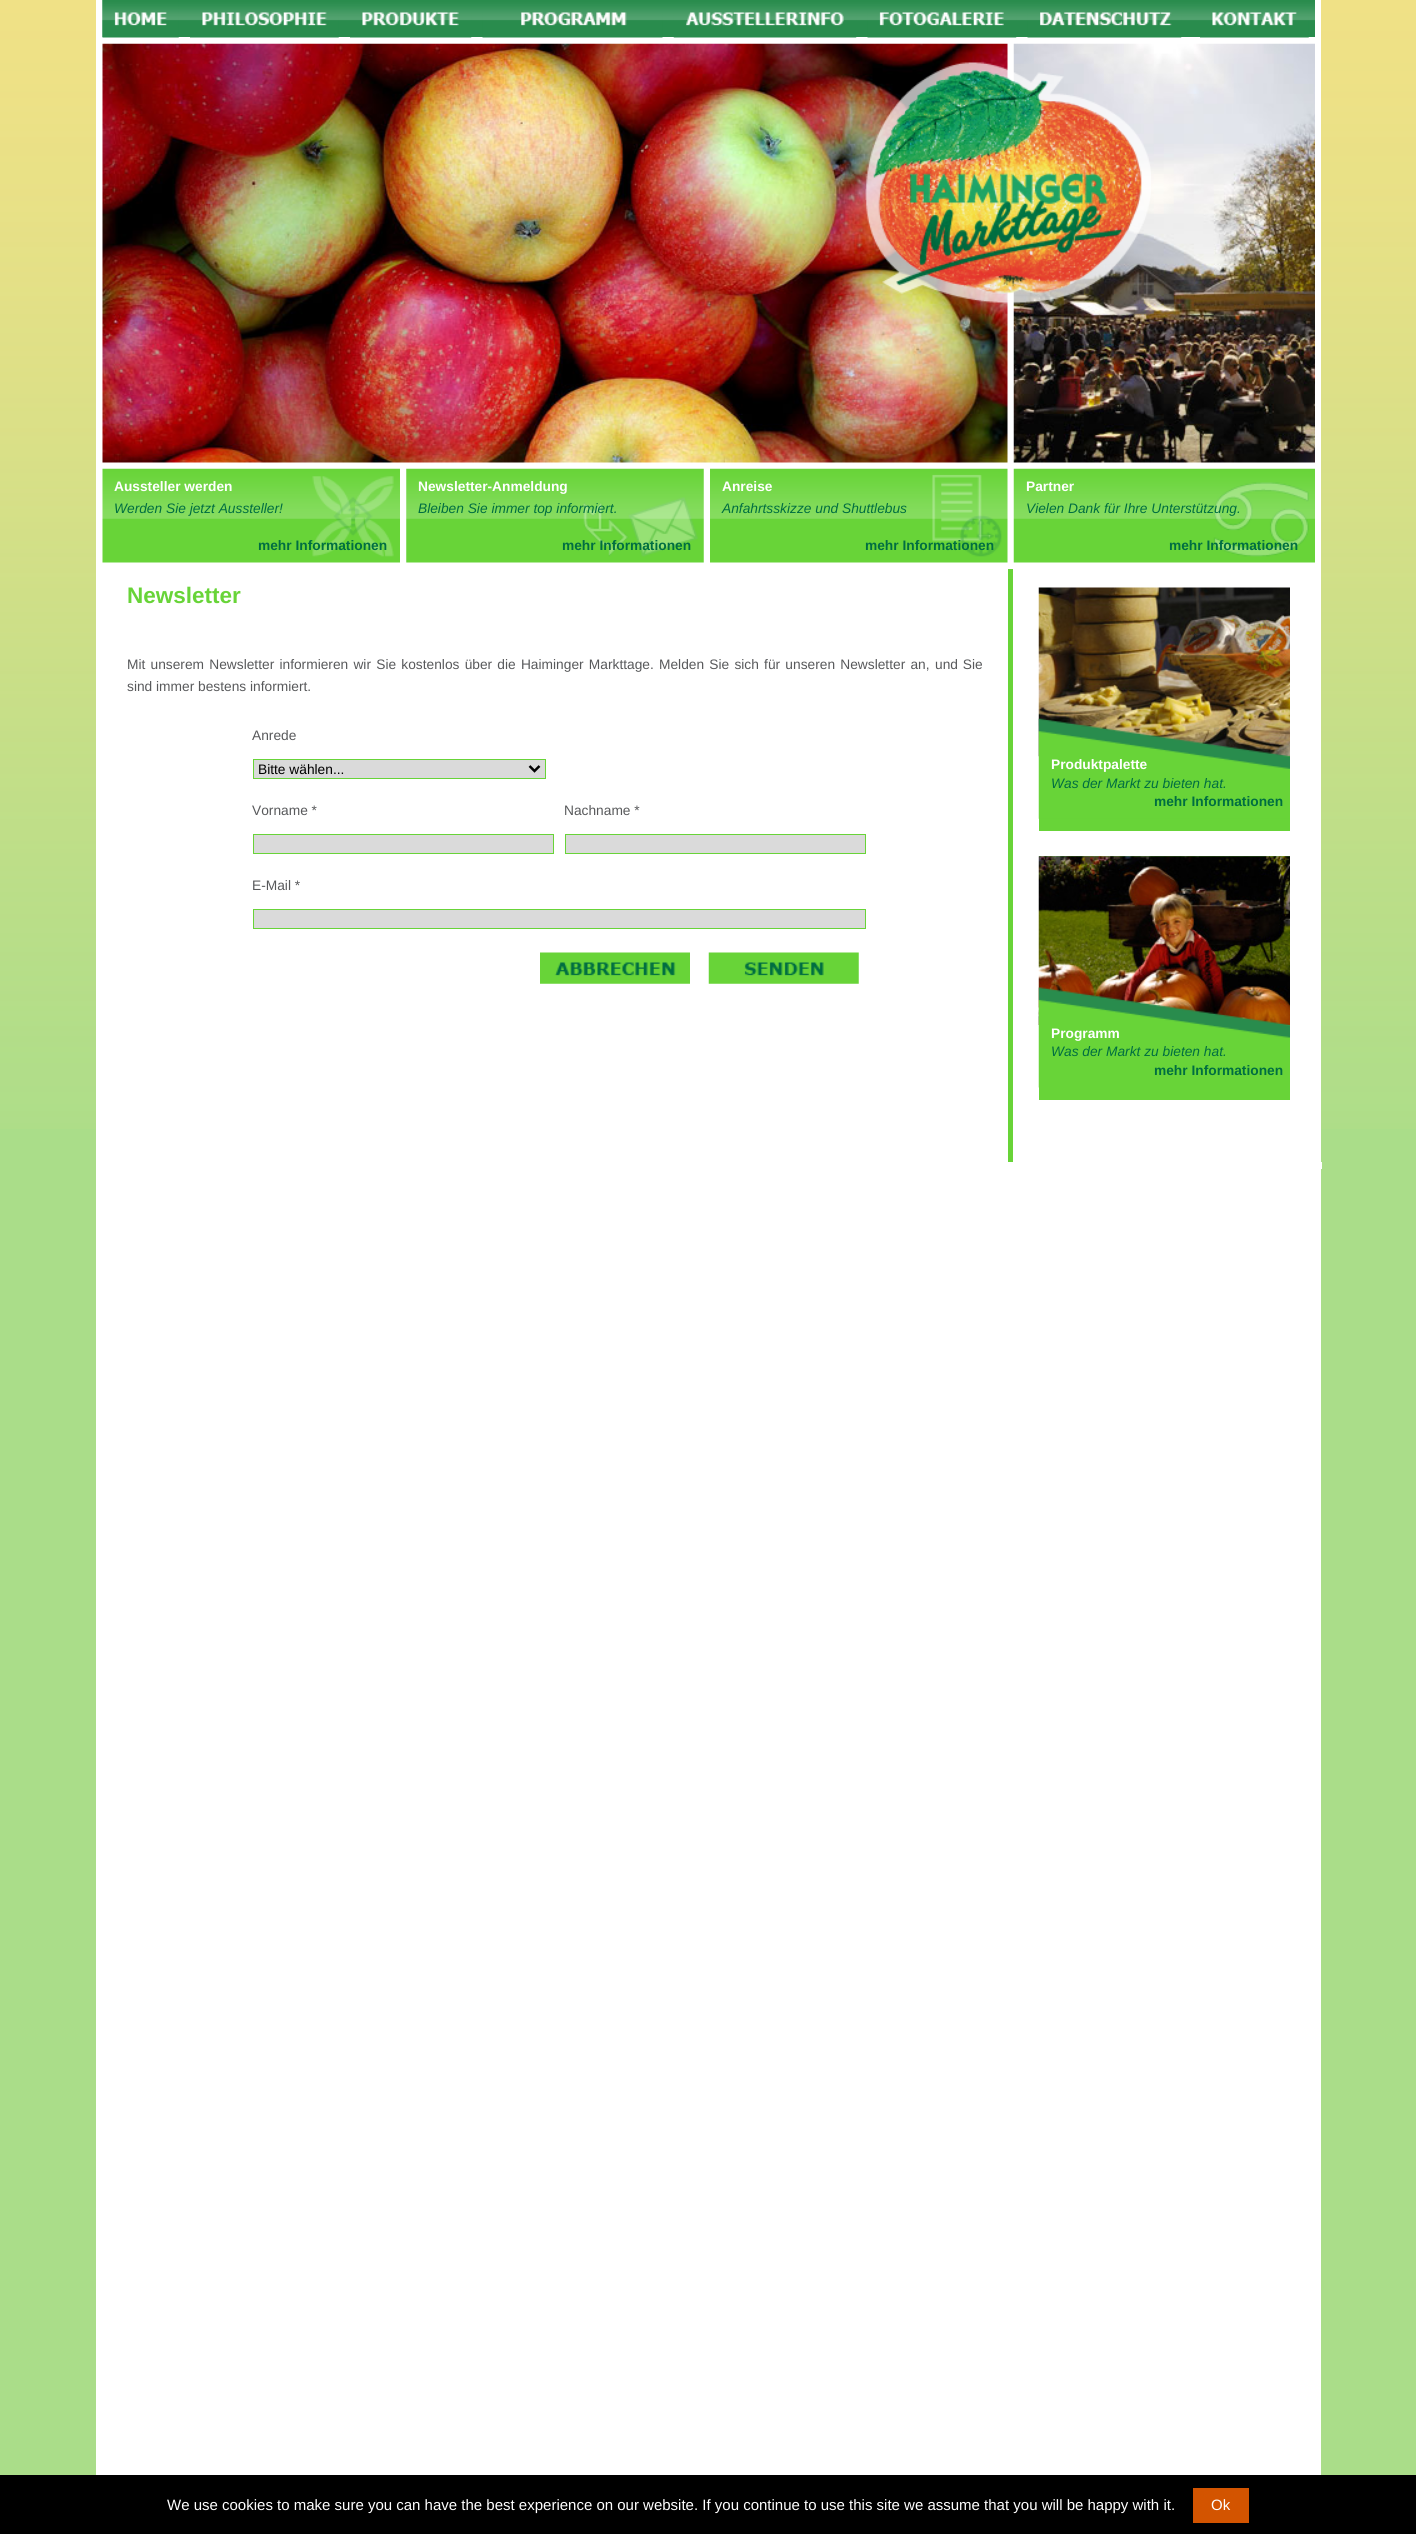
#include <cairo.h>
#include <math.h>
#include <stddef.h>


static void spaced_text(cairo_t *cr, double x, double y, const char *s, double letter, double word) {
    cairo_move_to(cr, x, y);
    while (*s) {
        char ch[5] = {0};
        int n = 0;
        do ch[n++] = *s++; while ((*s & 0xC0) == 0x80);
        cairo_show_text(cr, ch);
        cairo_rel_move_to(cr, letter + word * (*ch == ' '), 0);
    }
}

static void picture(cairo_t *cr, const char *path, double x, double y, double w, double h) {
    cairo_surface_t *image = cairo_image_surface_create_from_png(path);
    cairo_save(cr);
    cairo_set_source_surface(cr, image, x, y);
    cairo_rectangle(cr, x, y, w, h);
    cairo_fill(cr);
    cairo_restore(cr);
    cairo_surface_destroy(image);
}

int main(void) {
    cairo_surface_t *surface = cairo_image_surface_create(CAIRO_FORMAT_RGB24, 1416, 2534);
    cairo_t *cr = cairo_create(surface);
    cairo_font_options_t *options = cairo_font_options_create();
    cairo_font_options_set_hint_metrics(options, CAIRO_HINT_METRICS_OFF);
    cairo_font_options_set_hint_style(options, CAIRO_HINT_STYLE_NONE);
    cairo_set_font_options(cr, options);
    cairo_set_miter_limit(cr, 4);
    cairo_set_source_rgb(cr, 0.667, 0.867, 0.537);
    cairo_paint(cr);
    picture(cr, "img1.png", 0, 0, 1416, 1129);
    cairo_set_source_rgb(cr, 1, 1, 1);
    cairo_rectangle(cr, 96, 0, 1225, 2475);
    cairo_fill(cr);
    cairo_set_source_rgb(cr, 0.408, 0.831, 0.22);
    cairo_rectangle(cr, 1008, 569, 5, 594);
    cairo_fill(cr);
    picture(cr, "img2.png", 102, 0, 1213, 37);
    picture(cr, "img3.png", 102, 0, 77, 38);
    picture(cr, "img4.png", 190, 12, 149, 26);
    picture(cr, "img5.png", 350, 12, 122, 26);
    picture(cr, "img6.png", 482, 12, 181, 26);
    picture(cr, "img7.png", 673, 12, 184, 26);
    picture(cr, "img8.png", 867, 12, 150, 26);
    picture(cr, "img9.png", 1027, 12, 155, 26);
    picture(cr, "img10.png", 1200, 12, 109, 26);
    picture(cr, "img11.png", 102, 43, 906, 420);
    picture(cr, "img12.png", 1013, 43, 302, 420);
    picture(cr, "img13.png", 865, 62, 286, 242);
    picture(cr, "img14.png", 102, 468, 298, 95);
    cairo_select_font_face(cr, "Liberation Sans", CAIRO_FONT_SLANT_NORMAL, CAIRO_FONT_WEIGHT_BOLD);
    cairo_set_font_size(cr, 13.75);
    cairo_set_source_rgb(cr, 1, 1, 1);
    cairo_move_to(cr, 114, 491);
    cairo_show_text(cr, "Aussteller werden");
    cairo_select_font_face(cr, "Liberation Sans", CAIRO_FONT_SLANT_ITALIC, CAIRO_FONT_WEIGHT_NORMAL);
    cairo_set_source_rgb(cr, 0, 0.431, 0.255);
    cairo_move_to(cr, 114, 513);
    cairo_show_text(cr, "Werden Sie jetzt Aussteller!");
    cairo_select_font_face(cr, "Liberation Sans", CAIRO_FONT_SLANT_NORMAL, CAIRO_FONT_WEIGHT_BOLD);
    cairo_move_to(cr, 258, 550);
    cairo_show_text(cr, "mehr Informationen");
    picture(cr, "img15.png", 406, 468, 298, 95);
    cairo_set_source_rgb(cr, 1, 1, 1);
    cairo_move_to(cr, 418, 491);
    cairo_show_text(cr, "Newsletter-Anmeldung");
    cairo_select_font_face(cr, "Liberation Sans", CAIRO_FONT_SLANT_ITALIC, CAIRO_FONT_WEIGHT_NORMAL);
    cairo_set_source_rgb(cr, 0, 0.431, 0.255);
    cairo_move_to(cr, 418, 513);
    cairo_show_text(cr, "Bleiben Sie immer top informiert.");
    cairo_select_font_face(cr, "Liberation Sans", CAIRO_FONT_SLANT_NORMAL, CAIRO_FONT_WEIGHT_BOLD);
    cairo_move_to(cr, 562, 550);
    cairo_show_text(cr, "mehr Informationen");
    picture(cr, "img16.png", 710, 468, 298, 95);
    cairo_set_source_rgb(cr, 1, 1, 1);
    cairo_move_to(cr, 722, 491);
    cairo_show_text(cr, "Anreise");
    cairo_select_font_face(cr, "Liberation Sans", CAIRO_FONT_SLANT_ITALIC, CAIRO_FONT_WEIGHT_NORMAL);
    cairo_set_source_rgb(cr, 0, 0.431, 0.255);
    cairo_move_to(cr, 722, 513);
    cairo_show_text(cr, "Anfahrtsskizze und Shuttlebus");
    cairo_select_font_face(cr, "Liberation Sans", CAIRO_FONT_SLANT_NORMAL, CAIRO_FONT_WEIGHT_BOLD);
    cairo_move_to(cr, 865, 550);
    cairo_show_text(cr, "mehr Informationen");
    picture(cr, "img17.png", 1013, 468, 302, 95);
    cairo_set_source_rgb(cr, 1, 1, 1);
    cairo_move_to(cr, 1026, 491);
    cairo_show_text(cr, "Partner");
    cairo_select_font_face(cr, "Liberation Sans", CAIRO_FONT_SLANT_ITALIC, CAIRO_FONT_WEIGHT_NORMAL);
    cairo_set_source_rgb(cr, 0, 0.431, 0.255);
    cairo_move_to(cr, 1026, 513);
    cairo_show_text(cr, "Vielen Dank für Ihre Unterstützung.");
    cairo_select_font_face(cr, "Liberation Sans", CAIRO_FONT_SLANT_NORMAL, CAIRO_FONT_WEIGHT_BOLD);
    cairo_move_to(cr, 1169, 550);
    cairo_show_text(cr, "mehr Informationen");
    cairo_set_font_size(cr, 22.5);
    cairo_set_source_rgb(cr, 0.408, 0.831, 0.22);
    cairo_move_to(cr, 127, 603);
    cairo_show_text(cr, "Newsletter");
    cairo_select_font_face(cr, "Liberation Sans", CAIRO_FONT_SLANT_NORMAL, CAIRO_FONT_WEIGHT_NORMAL);
    cairo_set_font_size(cr, 13.75);
    cairo_set_source_rgb(cr, 0.345, 0.349, 0.357);
    spaced_text(cr, 127, 669, "Mit unserem Newsletter informieren wir Sie kostenlos über die Haiminger Markttage. Melden Sie sich für unseren Newsletter an,", 0, 1.4);
    spaced_text(cr, 935, 669, "und Sie", 0, 1);
    cairo_move_to(cr, 127, 691);
    cairo_show_text(cr, "sind immer bestens informiert.");
    cairo_move_to(cr, 252, 740);
    cairo_show_text(cr, "Anrede");
    cairo_set_source_rgb(cr, 0.855, 0.855, 0.855);
    cairo_rectangle(cr, 253.5, 759.5, 292, 19);
    cairo_fill_preserve(cr);
    cairo_set_source_rgb(cr, 0.408, 0.831, 0.22);
    cairo_set_line_width(cr, 1);
    cairo_stroke(cr);
    cairo_new_path(cr);
    cairo_move_to(cr, 529.5, 766);
    cairo_line_to(cr, 534.5, 771);
    cairo_line_to(cr, 539.5, 766);
    cairo_set_source_rgb(cr, 0, 0, 0);
    cairo_set_line_width(cr, 2.5);
    cairo_stroke(cr);
    cairo_move_to(cr, 258, 774);
    cairo_show_text(cr, "Bitte wählen...");
    cairo_set_source_rgb(cr, 0.345, 0.349, 0.357);
    cairo_move_to(cr, 252, 815);
    cairo_show_text(cr, "Vorname *");
    cairo_move_to(cr, 564, 815);
    cairo_show_text(cr, "Nachname *");
    cairo_set_source_rgb(cr, 0.855, 0.855, 0.855);
    cairo_rectangle(cr, 253.5, 834.5, 300, 19);
    cairo_fill_preserve(cr);
    cairo_set_source_rgb(cr, 0.408, 0.831, 0.22);
    cairo_set_line_width(cr, 1);
    cairo_stroke(cr);
    cairo_set_source_rgb(cr, 0.855, 0.855, 0.855);
    cairo_rectangle(cr, 565.5, 834.5, 300, 19);
    cairo_fill_preserve(cr);
    cairo_set_source_rgb(cr, 0.408, 0.831, 0.22);
    cairo_stroke(cr);
    cairo_set_source_rgb(cr, 0.345, 0.349, 0.357);
    cairo_move_to(cr, 252, 890);
    cairo_show_text(cr, "E-Mail *");
    cairo_set_source_rgb(cr, 0.855, 0.855, 0.855);
    cairo_rectangle(cr, 253.5, 909.5, 612, 19);
    cairo_fill_preserve(cr);
    cairo_set_source_rgb(cr, 0.408, 0.831, 0.22);
    cairo_stroke(cr);
    picture(cr, "img18.png", 540, 952, 150, 32);
    picture(cr, "img19.png", 708, 952, 151, 32);
    cairo_rectangle(cr, 1039, 756, 251, 75);
    cairo_fill(cr);
    picture(cr, "img20.png", 1038, 587, 252, 170);
    picture(cr, "img21.png", 1038, 718, 252, 101);
    cairo_select_font_face(cr, "Liberation Sans", CAIRO_FONT_SLANT_NORMAL, CAIRO_FONT_WEIGHT_BOLD);
    cairo_set_source_rgb(cr, 1, 1, 1);
    cairo_move_to(cr, 1051, 769);
    cairo_show_text(cr, "Produktpalette");
    cairo_select_font_face(cr, "Liberation Sans", CAIRO_FONT_SLANT_ITALIC, CAIRO_FONT_WEIGHT_NORMAL);
    cairo_set_source_rgb(cr, 0, 0.431, 0.255);
    cairo_move_to(cr, 1051, 788);
    cairo_show_text(cr, "Was der Markt zu bieten hat.");
    cairo_select_font_face(cr, "Liberation Sans", CAIRO_FONT_SLANT_NORMAL, CAIRO_FONT_WEIGHT_BOLD);
    cairo_move_to(cr, 1154, 806);
    cairo_show_text(cr, "mehr Informationen");
    cairo_set_source_rgb(cr, 0.408, 0.831, 0.22);
    cairo_rectangle(cr, 1039, 856, 251, 244);
    cairo_fill(cr);
    picture(cr, "img22.png", 1038, 856, 252, 169);
    picture(cr, "img23.png", 1038, 987, 252, 101);
    cairo_set_source_rgb(cr, 1, 1, 1);
    cairo_move_to(cr, 1051, 1038);
    cairo_show_text(cr, "Programm");
    cairo_select_font_face(cr, "Liberation Sans", CAIRO_FONT_SLANT_ITALIC, CAIRO_FONT_WEIGHT_NORMAL);
    cairo_set_source_rgb(cr, 0, 0.431, 0.255);
    cairo_move_to(cr, 1051, 1056);
    cairo_show_text(cr, "Was der Markt zu bieten hat.");
    cairo_select_font_face(cr, "Liberation Sans", CAIRO_FONT_SLANT_NORMAL, CAIRO_FONT_WEIGHT_BOLD);
    cairo_move_to(cr, 1154, 1075);
    cairo_show_text(cr, "mehr Informationen");
    cairo_set_source_rgb(cr, 1, 1, 1);
    cairo_rectangle(cr, 1008, 1162, 314, 7);
    cairo_fill(cr);
    cairo_set_source_rgb(cr, 0, 0, 0);
    cairo_rectangle(cr, 0, 2475, 1416, 59);
    cairo_fill(cr);
    cairo_select_font_face(cr, "Liberation Sans", CAIRO_FONT_SLANT_NORMAL, CAIRO_FONT_WEIGHT_NORMAL);
    cairo_set_font_size(cr, 15);
    cairo_set_source_rgb(cr, 1, 1, 1);
    cairo_move_to(cr, 167, 2510);
    cairo_show_text(cr, "We use cookies to make sure you can have the best experience on our website. If you continue to use this site we assume that you will be happy with it.");
    cairo_set_source_rgb(cr, 0.827, 0.329, 0);
    cairo_rectangle(cr, 1193, 2488, 56, 35);
    cairo_fill(cr);
    cairo_set_source_rgb(cr, 1, 1, 1);
    cairo_move_to(cr, 1211, 2510);
    cairo_show_text(cr, "Ok");
    cairo_surface_write_to_png(surface, "page.png");
    cairo_font_options_destroy(options);
    cairo_destroy(cr);
    cairo_surface_destroy(surface);
    return 0;
}
